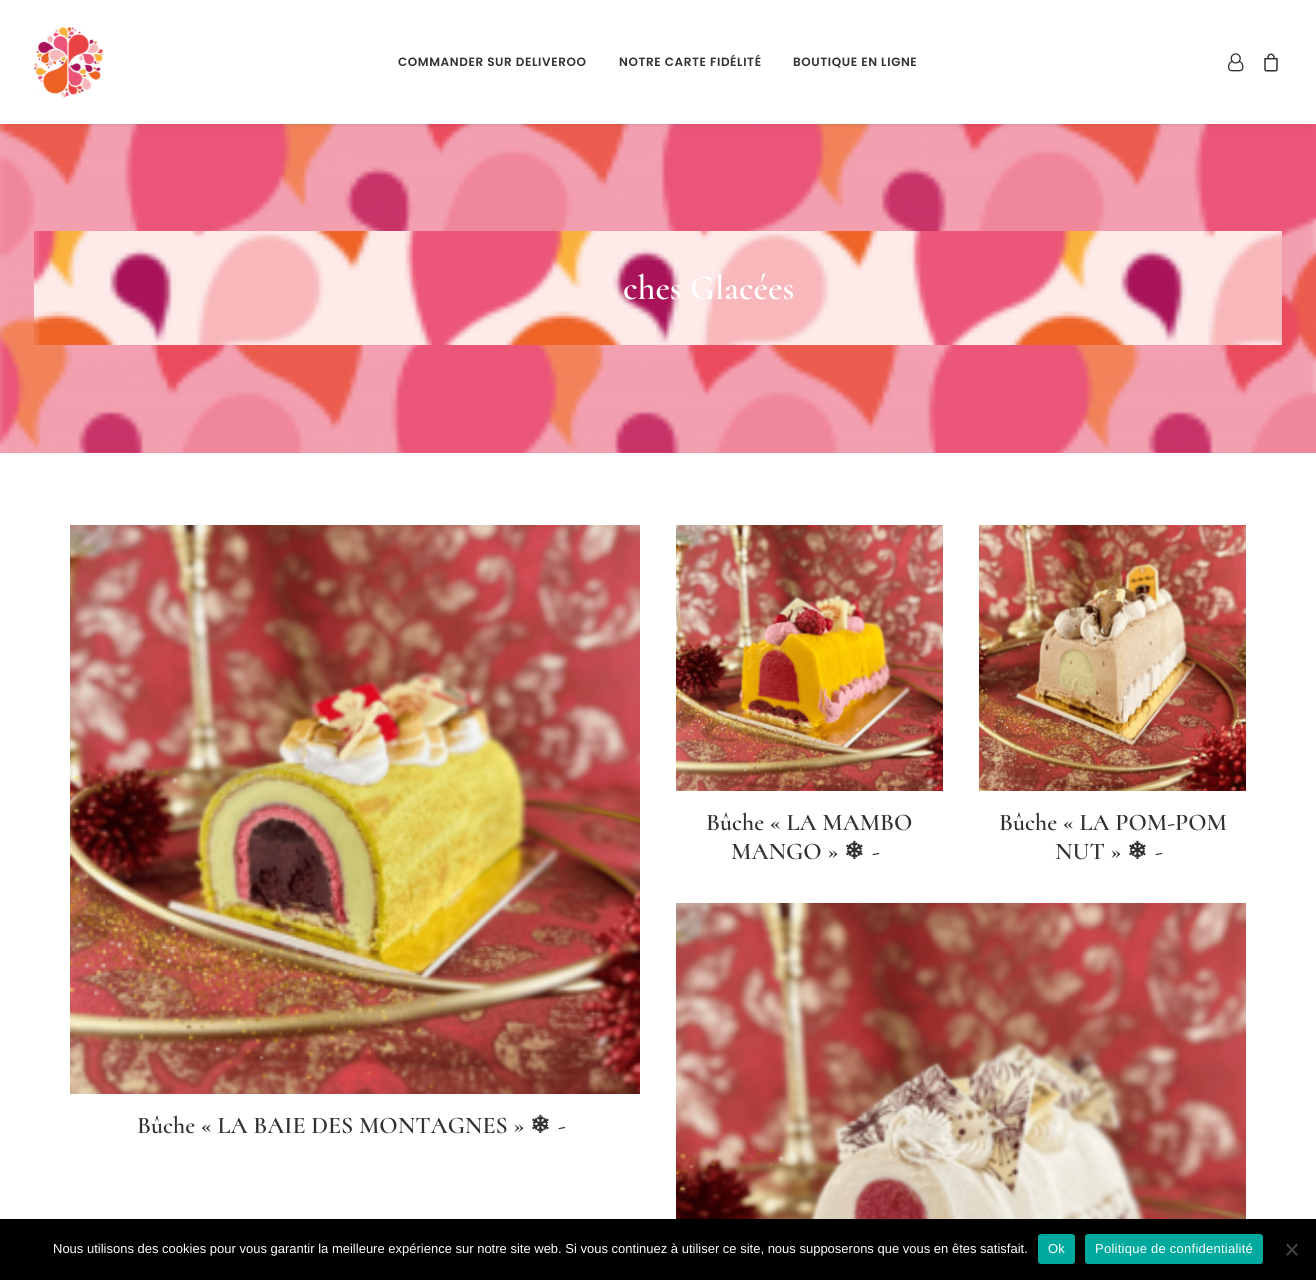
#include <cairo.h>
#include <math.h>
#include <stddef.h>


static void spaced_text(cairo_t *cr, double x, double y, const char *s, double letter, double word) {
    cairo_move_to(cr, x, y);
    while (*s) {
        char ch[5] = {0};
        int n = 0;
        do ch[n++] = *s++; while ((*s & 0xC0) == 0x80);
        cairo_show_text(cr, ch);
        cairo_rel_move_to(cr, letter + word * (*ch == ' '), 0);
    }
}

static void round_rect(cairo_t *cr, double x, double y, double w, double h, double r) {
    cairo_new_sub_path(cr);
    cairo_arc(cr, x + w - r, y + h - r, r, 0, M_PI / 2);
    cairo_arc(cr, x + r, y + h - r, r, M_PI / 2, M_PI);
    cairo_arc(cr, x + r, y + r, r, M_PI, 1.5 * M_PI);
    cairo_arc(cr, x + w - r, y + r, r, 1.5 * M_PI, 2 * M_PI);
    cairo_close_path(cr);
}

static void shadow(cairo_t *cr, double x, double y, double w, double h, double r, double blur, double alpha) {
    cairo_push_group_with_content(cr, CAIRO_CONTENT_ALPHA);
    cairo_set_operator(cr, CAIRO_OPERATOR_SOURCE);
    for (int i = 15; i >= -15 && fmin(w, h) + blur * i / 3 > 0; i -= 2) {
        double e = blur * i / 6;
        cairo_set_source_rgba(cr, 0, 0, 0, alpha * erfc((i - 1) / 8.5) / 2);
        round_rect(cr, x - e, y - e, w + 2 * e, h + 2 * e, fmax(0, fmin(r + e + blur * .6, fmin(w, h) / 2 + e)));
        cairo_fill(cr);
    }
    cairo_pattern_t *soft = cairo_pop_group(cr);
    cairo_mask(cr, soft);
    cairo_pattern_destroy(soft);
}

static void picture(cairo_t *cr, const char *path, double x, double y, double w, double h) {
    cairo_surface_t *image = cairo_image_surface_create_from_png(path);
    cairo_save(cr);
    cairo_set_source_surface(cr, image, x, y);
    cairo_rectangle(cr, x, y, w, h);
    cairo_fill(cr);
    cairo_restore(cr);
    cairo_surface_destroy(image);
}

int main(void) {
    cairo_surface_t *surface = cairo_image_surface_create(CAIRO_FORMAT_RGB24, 1316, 1280);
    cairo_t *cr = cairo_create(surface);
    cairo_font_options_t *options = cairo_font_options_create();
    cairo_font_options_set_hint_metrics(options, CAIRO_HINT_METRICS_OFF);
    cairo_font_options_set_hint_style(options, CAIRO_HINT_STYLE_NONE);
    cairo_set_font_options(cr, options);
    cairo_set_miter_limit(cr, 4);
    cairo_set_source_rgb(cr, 1, 1, 1);
    cairo_paint(cr);
    picture(cr, "img4.png", 0, 124, 1316, 329);
    cairo_set_source_rgb(cr, 0, 0, 0);
    shadow(cr, 8, 14, 1300, 104, 0, 5, 0.6);
    cairo_set_source_rgb(cr, 1, 1, 1);
    cairo_rectangle(cr, 0, 3, 1316, 121);
    cairo_fill(cr);
    picture(cr, "img1.png", 34, 27, 69, 70);
    cairo_select_font_face(cr, "Poppins SemiBold", CAIRO_FONT_SLANT_NORMAL, CAIRO_FONT_WEIGHT_NORMAL);
    cairo_set_font_size(cr, 12);
    cairo_set_source_rgb(cr, 0.188, 0.192, 0.2);
    spaced_text(cr, 398, 66, "COMMANDER SUR DELIVEROO", 0.6, 0);
    spaced_text(cr, 619, 66, "NOTRE CARTE FIDÉLITÉ", 0.6, 0);
    spaced_text(cr, 793, 66, "BOUTIQUE EN LIGNE", 0.6, 0);
    picture(cr, "img2.png", 1228, 53, 16, 19);
    picture(cr, "img3.png", 1264, 53, 14, 19);
    picture(cr, "img5.png", 34, 231, 1248, 114);
    cairo_select_font_face(cr, "Cormorant SemiBold", CAIRO_FONT_SLANT_NORMAL, CAIRO_FONT_WEIGHT_NORMAL);
    cairo_set_font_size(cr, 35);
    cairo_set_source_rgb(cr, 1, 1, 1);
    cairo_move_to(cr, 623, 299);
    cairo_show_text(cr, "ches Glacées");
    picture(cr, "img6.png", 676, 525, 267, 266);
    cairo_set_font_size(cr, 24);
    cairo_set_source_rgb(cr, 0.188, 0.192, 0.2);
    cairo_move_to(cr, 706, 830);
    cairo_show_text(cr, "Bûche « LA MAMBO");
    cairo_move_to(cr, 731, 859);
    cairo_show_text(cr, "MANGO »");
    cairo_select_font_face(cr, "DejaVu Sans", CAIRO_FONT_SLANT_NORMAL, CAIRO_FONT_WEIGHT_BOLD);
    cairo_move_to(cr, 844, 859);
    cairo_show_text(cr, "❄");
    cairo_select_font_face(cr, "Cormorant SemiBold", CAIRO_FONT_SLANT_NORMAL, CAIRO_FONT_WEIGHT_NORMAL);
    cairo_move_to(cr, 872, 859);
    cairo_show_text(cr, "-");
    picture(cr, "img7.png", 979, 525, 267, 266);
    cairo_move_to(cr, 999, 830);
    cairo_show_text(cr, "Bûche « LA POM-POM");
    cairo_move_to(cr, 1055, 859);
    cairo_show_text(cr, "NUT »");
    cairo_select_font_face(cr, "DejaVu Sans", CAIRO_FONT_SLANT_NORMAL, CAIRO_FONT_WEIGHT_BOLD);
    cairo_move_to(cr, 1127, 859);
    cairo_show_text(cr, "❄");
    cairo_select_font_face(cr, "Cormorant SemiBold", CAIRO_FONT_SLANT_NORMAL, CAIRO_FONT_WEIGHT_NORMAL);
    cairo_move_to(cr, 1155, 859);
    cairo_show_text(cr, "-");
    picture(cr, "img8.png", 70, 525, 570, 569);
    cairo_move_to(cr, 137, 1133);
    cairo_show_text(cr, "Bûche « LA BAIE DES MONTAGNES »");
    cairo_select_font_face(cr, "DejaVu Sans", CAIRO_FONT_SLANT_NORMAL, CAIRO_FONT_WEIGHT_BOLD);
    cairo_move_to(cr, 530, 1133);
    cairo_show_text(cr, "❄");
    cairo_select_font_face(cr, "Cormorant SemiBold", CAIRO_FONT_SLANT_NORMAL, CAIRO_FONT_WEIGHT_NORMAL);
    cairo_move_to(cr, 558, 1133);
    cairo_show_text(cr, "-");
    picture(cr, "img9.png", 676, 903, 570, 316);
    cairo_set_source_rgb(cr, 0, 0, 0);
    cairo_rectangle(cr, 0, 1219, 1316, 61);
    cairo_fill(cr);
    cairo_select_font_face(cr, "Liberation Sans", CAIRO_FONT_SLANT_NORMAL, CAIRO_FONT_WEIGHT_NORMAL);
    cairo_set_font_size(cr, 13);
    cairo_set_source_rgb(cr, 1, 1, 1);
    cairo_move_to(cr, 53, 1253);
    cairo_show_text(cr, "Nous utilisons des cookies pour vous garantir la meilleure expérience sur notre site web. Si vous continuez à utiliser ce site, nous supposerons que vous en êtes satisfait.");
    cairo_set_source_rgb(cr, 0, 0.663, 0.616);
    round_rect(cr, 1038, 1234, 37, 30, 3);
    cairo_fill(cr);
    cairo_set_source_rgb(cr, 1, 1, 1);
    spaced_text(cr, 1048, 1253, "Ok", 0.25, 0);
    cairo_set_source_rgb(cr, 0, 0.663, 0.616);
    round_rect(cr, 1085, 1234, 178, 30, 3);
    cairo_fill(cr);
    cairo_set_source_rgb(cr, 1, 1, 1);
    spaced_text(cr, 1095, 1253, "Politique de confidentialité", 0.25, 0);
    cairo_set_source_rgb(cr, 0.251, 0.251, 0.251);
    cairo_new_path(cr);
    cairo_move_to(cr, 1296.5, 1243.5);
    cairo_line_to(cr, 1298, 1245);
    cairo_line_to(cr, 1287.5, 1256);
    cairo_line_to(cr, 1286, 1254.5);
    cairo_close_path(cr);
    cairo_fill(cr);
    cairo_new_path(cr);
    cairo_move_to(cr, 1286, 1245);
    cairo_line_to(cr, 1287.5, 1243.5);
    cairo_line_to(cr, 1298, 1254.5);
    cairo_line_to(cr, 1296.5, 1256);
    cairo_close_path(cr);
    cairo_fill(cr);
    cairo_surface_write_to_png(surface, "page.png");
    cairo_font_options_destroy(options);
    cairo_destroy(cr);
    cairo_surface_destroy(surface);
    return 0;
}
